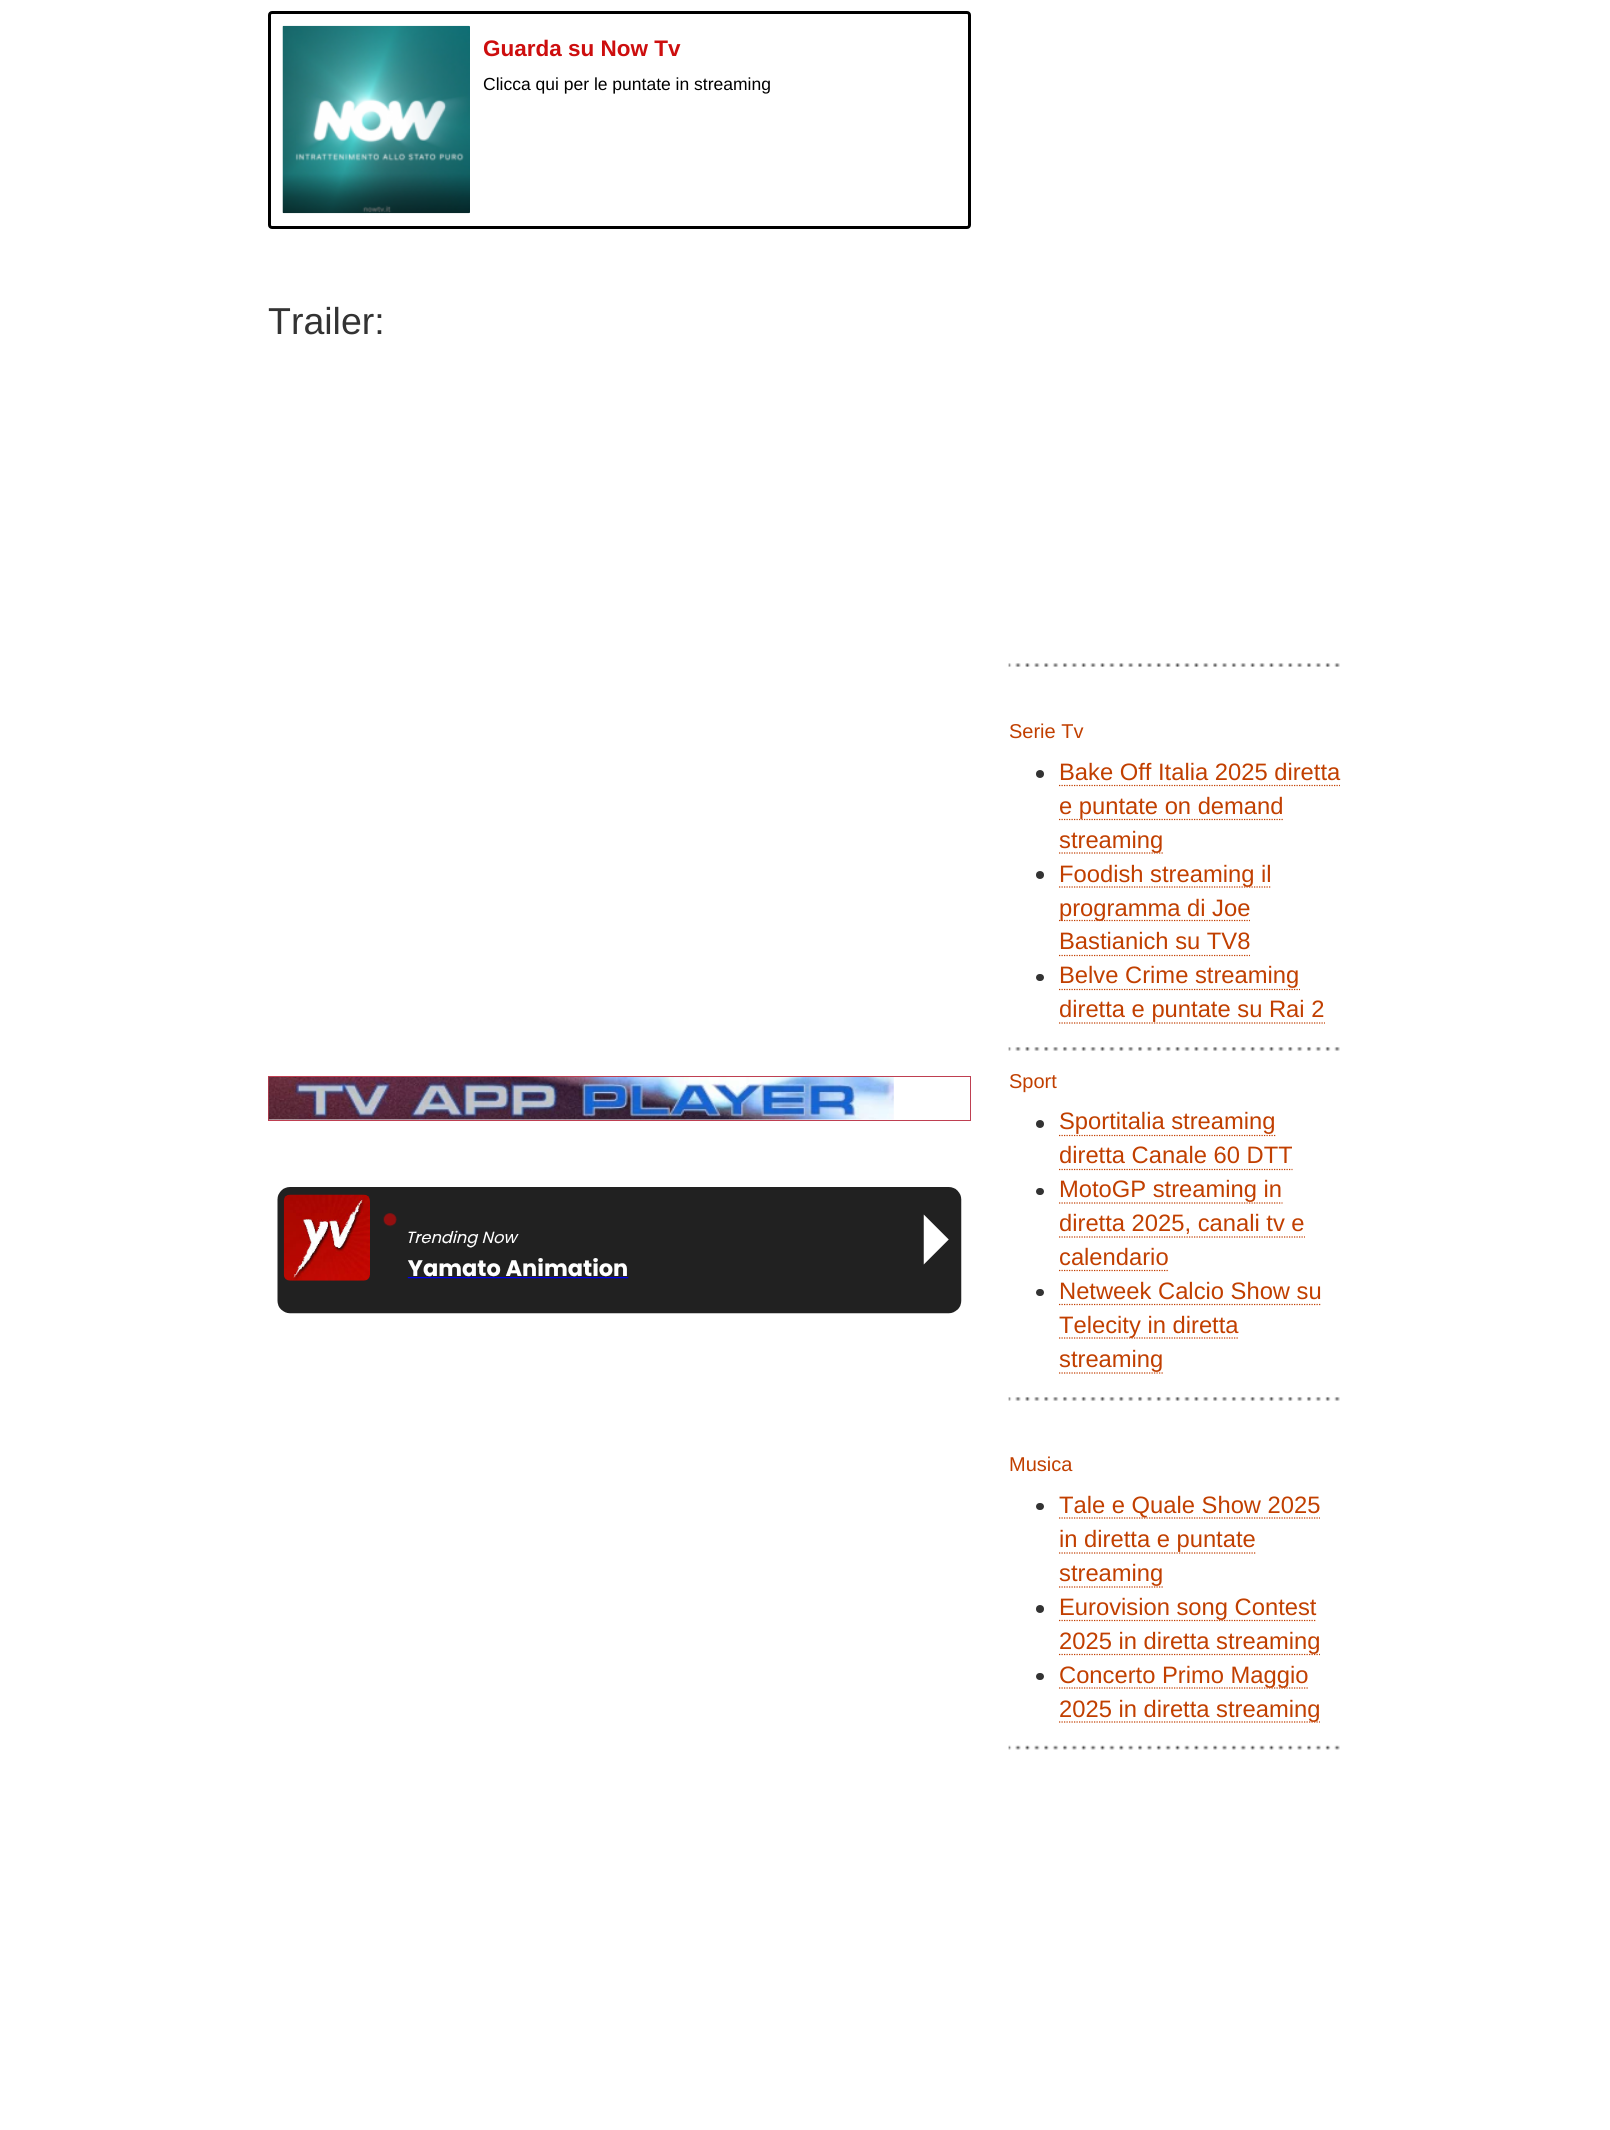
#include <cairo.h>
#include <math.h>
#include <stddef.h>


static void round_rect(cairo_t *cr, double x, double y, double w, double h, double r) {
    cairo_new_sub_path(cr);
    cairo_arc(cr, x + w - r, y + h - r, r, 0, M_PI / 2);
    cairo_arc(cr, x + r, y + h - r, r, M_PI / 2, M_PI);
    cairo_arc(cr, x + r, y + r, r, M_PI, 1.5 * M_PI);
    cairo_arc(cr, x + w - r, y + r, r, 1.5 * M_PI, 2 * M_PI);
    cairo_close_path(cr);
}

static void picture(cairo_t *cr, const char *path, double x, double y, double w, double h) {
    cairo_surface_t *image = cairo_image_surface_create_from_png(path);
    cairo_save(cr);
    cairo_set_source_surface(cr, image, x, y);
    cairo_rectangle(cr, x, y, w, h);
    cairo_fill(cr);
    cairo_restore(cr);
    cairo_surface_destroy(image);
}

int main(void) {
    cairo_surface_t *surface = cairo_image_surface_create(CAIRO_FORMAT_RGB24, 1610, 2130);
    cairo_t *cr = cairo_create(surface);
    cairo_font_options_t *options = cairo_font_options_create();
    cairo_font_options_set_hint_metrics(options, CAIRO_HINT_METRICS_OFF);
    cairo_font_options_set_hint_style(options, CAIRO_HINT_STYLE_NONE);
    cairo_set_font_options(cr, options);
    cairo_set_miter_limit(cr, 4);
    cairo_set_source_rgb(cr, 1, 1, 1);
    cairo_paint(cr);
    round_rect(cr, 269.5, 12.5, 700, 215, 2.5);
    cairo_set_source_rgb(cr, 0, 0, 0);
    cairo_set_line_width(cr, 3);
    cairo_stroke(cr);
    picture(cr, "img1.png", 282, 25, 188, 189);
    cairo_select_font_face(cr, "Liberation Sans", CAIRO_FONT_SLANT_NORMAL, CAIRO_FONT_WEIGHT_BOLD);
    cairo_set_font_size(cr, 22.5);
    cairo_set_source_rgb(cr, 0.804, 0.055, 0.055);
    cairo_move_to(cr, 483, 56);
    cairo_show_text(cr, "Guarda su Now Tv");
    cairo_select_font_face(cr, "Liberation Sans", CAIRO_FONT_SLANT_NORMAL, CAIRO_FONT_WEIGHT_NORMAL);
    cairo_set_font_size(cr, 17.5);
    cairo_set_source_rgb(cr, 0, 0, 0);
    cairo_move_to(cr, 483, 90);
    cairo_show_text(cr, "Clicca qui per le puntate in streaming");
    cairo_set_font_size(cr, 37.5);
    cairo_set_source_rgb(cr, 0.2, 0.2, 0.2);
    cairo_move_to(cr, 268, 334);
    cairo_show_text(cr, "Trailer:");
    cairo_rectangle(cr, 268.5, 1076.5, 702, 44);
    cairo_set_source_rgb(cr, 0.749, 0.247, 0.318);
    cairo_set_line_width(cr, 1);
    cairo_stroke(cr);
    picture(cr, "img2.png", 268, 1077, 626, 43);
    picture(cr, "img3.png", 277, 1187, 685, 127);
    picture(cr, "img4.png", 1008, 663, 332, 4);
    picture(cr, "img5.png", 1008, 1047, 332, 4);
    cairo_set_font_size(cr, 20);
    cairo_set_source_rgb(cr, 0.757, 0.247, 0);
    cairo_move_to(cr, 1009, 738);
    cairo_show_text(cr, "Serie Tv");
    cairo_set_source_rgb(cr, 0.2, 0.2, 0.2);
    cairo_new_path(cr);
    cairo_arc(cr, 1040, 774, 4, 0, 2 * M_PI);
    cairo_fill(cr);
    cairo_set_font_size(cr, 23.75);
    cairo_set_source_rgb(cr, 0.757, 0.247, 0);
    cairo_move_to(cr, 1059, 780);
    cairo_show_text(cr, "Bake Off Italia 2025 diretta");
    cairo_new_path(cr);
    cairo_move_to(cr, 1059, 785.5);
    cairo_line_to(cr, 1340, 785.5);
    cairo_set_line_width(cr, 1.2);
    cairo_set_dash(cr, (double[]){1.25, 1.25}, 2, 0);
    cairo_stroke(cr);
    cairo_new_path(cr);
    cairo_move_to(cr, 1059, 819.5);
    cairo_line_to(cr, 1284, 819.5);
    cairo_stroke(cr);
    cairo_move_to(cr, 1059, 814);
    cairo_show_text(cr, "e puntate on demand");
    cairo_new_path(cr);
    cairo_move_to(cr, 1059, 853);
    cairo_line_to(cr, 1164, 853);
    cairo_stroke(cr);
    cairo_move_to(cr, 1059, 848);
    cairo_show_text(cr, "streaming");
    cairo_set_source_rgb(cr, 0.2, 0.2, 0.2);
    cairo_new_path(cr);
    cairo_arc(cr, 1040, 875, 4, 0, 2 * M_PI);
    cairo_fill(cr);
    cairo_new_path(cr);
    cairo_move_to(cr, 1059, 887);
    cairo_line_to(cr, 1271, 887);
    cairo_set_source_rgb(cr, 0.757, 0.247, 0);
    cairo_stroke(cr);
    cairo_move_to(cr, 1059, 882);
    cairo_show_text(cr, "Foodish streaming il");
    cairo_new_path(cr);
    cairo_move_to(cr, 1059, 920.5);
    cairo_line_to(cr, 1250, 920.5);
    cairo_stroke(cr);
    cairo_move_to(cr, 1059, 916);
    cairo_show_text(cr, "programma di Joe");
    cairo_move_to(cr, 1059, 949);
    cairo_show_text(cr, "Bastianich su TV8");
    cairo_new_path(cr);
    cairo_move_to(cr, 1059, 955.5);
    cairo_line_to(cr, 1250, 955.5);
    cairo_stroke(cr);
    cairo_set_source_rgb(cr, 0.2, 0.2, 0.2);
    round_rect(cr, 1036, 974, 8, 7, 3.5);
    cairo_fill(cr);
    cairo_set_source_rgb(cr, 0.757, 0.247, 0);
    cairo_move_to(cr, 1059, 983);
    cairo_show_text(cr, "Belve Crime streaming");
    cairo_new_path(cr);
    cairo_move_to(cr, 1059, 989.5);
    cairo_line_to(cr, 1300, 989.5);
    cairo_stroke(cr);
    cairo_move_to(cr, 1059, 1017);
    cairo_show_text(cr, "diretta e puntate su Rai 2");
    cairo_new_path(cr);
    cairo_move_to(cr, 1059, 1023);
    cairo_line_to(cr, 1325, 1023);
    cairo_stroke(cr);
    picture(cr, "img5.png", 1008, 1397, 332, 4);
    cairo_set_font_size(cr, 20);
    cairo_move_to(cr, 1009, 1088);
    cairo_show_text(cr, "Sport");
    cairo_set_source_rgb(cr, 0.2, 0.2, 0.2);
    cairo_new_path(cr);
    cairo_arc(cr, 1040, 1124, 4, 0, 2 * M_PI);
    cairo_fill(cr);
    cairo_set_font_size(cr, 23.75);
    cairo_set_source_rgb(cr, 0.757, 0.247, 0);
    cairo_move_to(cr, 1059, 1129);
    cairo_show_text(cr, "Sportitalia streaming");
    cairo_new_path(cr);
    cairo_move_to(cr, 1059, 1135.5);
    cairo_line_to(cr, 1276, 1135.5);
    cairo_stroke(cr);
    cairo_move_to(cr, 1059, 1163);
    cairo_show_text(cr, "diretta Canale 60 DTT");
    cairo_new_path(cr);
    cairo_move_to(cr, 1059, 1169.5);
    cairo_line_to(cr, 1292.5, 1169.5);
    cairo_stroke(cr);
    cairo_set_source_rgb(cr, 0.2, 0.2, 0.2);
    round_rect(cr, 1036, 1188, 8, 7, 3.5);
    cairo_fill(cr);
    cairo_set_source_rgb(cr, 0.757, 0.247, 0);
    cairo_move_to(cr, 1059, 1197);
    cairo_show_text(cr, "MotoGP streaming in");
    cairo_new_path(cr);
    cairo_move_to(cr, 1059, 1203);
    cairo_line_to(cr, 1282.5, 1203);
    cairo_stroke(cr);
    cairo_move_to(cr, 1059, 1231);
    cairo_show_text(cr, "diretta 2025, canali tv e");
    cairo_new_path(cr);
    cairo_move_to(cr, 1059, 1237);
    cairo_line_to(cr, 1305, 1237);
    cairo_stroke(cr);
    cairo_move_to(cr, 1059, 1265);
    cairo_show_text(cr, "calendario");
    cairo_new_path(cr);
    cairo_move_to(cr, 1059, 1270.5);
    cairo_line_to(cr, 1169, 1270.5);
    cairo_stroke(cr);
    cairo_set_source_rgb(cr, 0.2, 0.2, 0.2);
    round_rect(cr, 1036, 1289, 8, 7, 3.5);
    cairo_fill(cr);
    cairo_set_source_rgb(cr, 0.757, 0.247, 0);
    cairo_move_to(cr, 1059, 1299);
    cairo_show_text(cr, "Netweek Calcio Show su");
    cairo_new_path(cr);
    cairo_move_to(cr, 1059, 1304.5);
    cairo_line_to(cr, 1321, 1304.5);
    cairo_stroke(cr);
    cairo_new_path(cr);
    cairo_move_to(cr, 1059, 1338);
    cairo_line_to(cr, 1239, 1338);
    cairo_stroke(cr);
    cairo_move_to(cr, 1059, 1333);
    cairo_show_text(cr, "Telecity in diretta");
    cairo_move_to(cr, 1059, 1367);
    cairo_show_text(cr, "streaming");
    cairo_new_path(cr);
    cairo_move_to(cr, 1059, 1373);
    cairo_line_to(cr, 1164, 1373);
    cairo_stroke(cr);
    picture(cr, "img6.png", 1008, 1745, 332, 5);
    cairo_set_font_size(cr, 20);
    cairo_move_to(cr, 1009, 1471);
    cairo_show_text(cr, "Musica");
    cairo_set_source_rgb(cr, 0.2, 0.2, 0.2);
    round_rect(cr, 1036, 1503, 8, 7, 3.5);
    cairo_fill(cr);
    cairo_new_path(cr);
    cairo_move_to(cr, 1059, 1518);
    cairo_line_to(cr, 1320, 1518);
    cairo_set_source_rgb(cr, 0.757, 0.247, 0);
    cairo_stroke(cr);
    cairo_set_font_size(cr, 23.75);
    cairo_move_to(cr, 1059, 1513);
    cairo_show_text(cr, "Tale e Quale Show 2025");
    cairo_move_to(cr, 1059, 1547);
    cairo_show_text(cr, "in diretta e puntate");
    cairo_new_path(cr);
    cairo_move_to(cr, 1059, 1553);
    cairo_line_to(cr, 1256, 1553);
    cairo_stroke(cr);
    cairo_move_to(cr, 1059, 1581);
    cairo_show_text(cr, "streaming");
    cairo_new_path(cr);
    cairo_move_to(cr, 1059, 1587);
    cairo_line_to(cr, 1164, 1587);
    cairo_stroke(cr);
    cairo_set_source_rgb(cr, 0.2, 0.2, 0.2);
    cairo_arc(cr, 1040, 1609, 4, 0, 2 * M_PI);
    cairo_fill(cr);
    cairo_new_path(cr);
    cairo_move_to(cr, 1059, 1620.5);
    cairo_line_to(cr, 1316, 1620.5);
    cairo_set_source_rgb(cr, 0.757, 0.247, 0);
    cairo_stroke(cr);
    cairo_move_to(cr, 1059, 1615);
    cairo_show_text(cr, "Eurovision song Contest");
    cairo_new_path(cr);
    cairo_move_to(cr, 1059, 1654.5);
    cairo_line_to(cr, 1320, 1654.5);
    cairo_stroke(cr);
    cairo_move_to(cr, 1059, 1649);
    cairo_show_text(cr, "2025 in diretta streaming");
    cairo_set_source_rgb(cr, 0.2, 0.2, 0.2);
    round_rect(cr, 1036, 1673, 8, 7, 3.5);
    cairo_fill(cr);
    cairo_new_path(cr);
    cairo_move_to(cr, 1059, 1688);
    cairo_line_to(cr, 1309, 1688);
    cairo_set_source_rgb(cr, 0.757, 0.247, 0);
    cairo_stroke(cr);
    cairo_move_to(cr, 1059, 1683);
    cairo_show_text(cr, "Concerto Primo Maggio");
    cairo_new_path(cr);
    cairo_move_to(cr, 1059, 1722);
    cairo_line_to(cr, 1320, 1722);
    cairo_stroke(cr);
    cairo_move_to(cr, 1059, 1717);
    cairo_show_text(cr, "2025 in diretta streaming");
    cairo_surface_write_to_png(surface, "page.png");
    cairo_font_options_destroy(options);
    cairo_destroy(cr);
    cairo_surface_destroy(surface);
    return 0;
}
